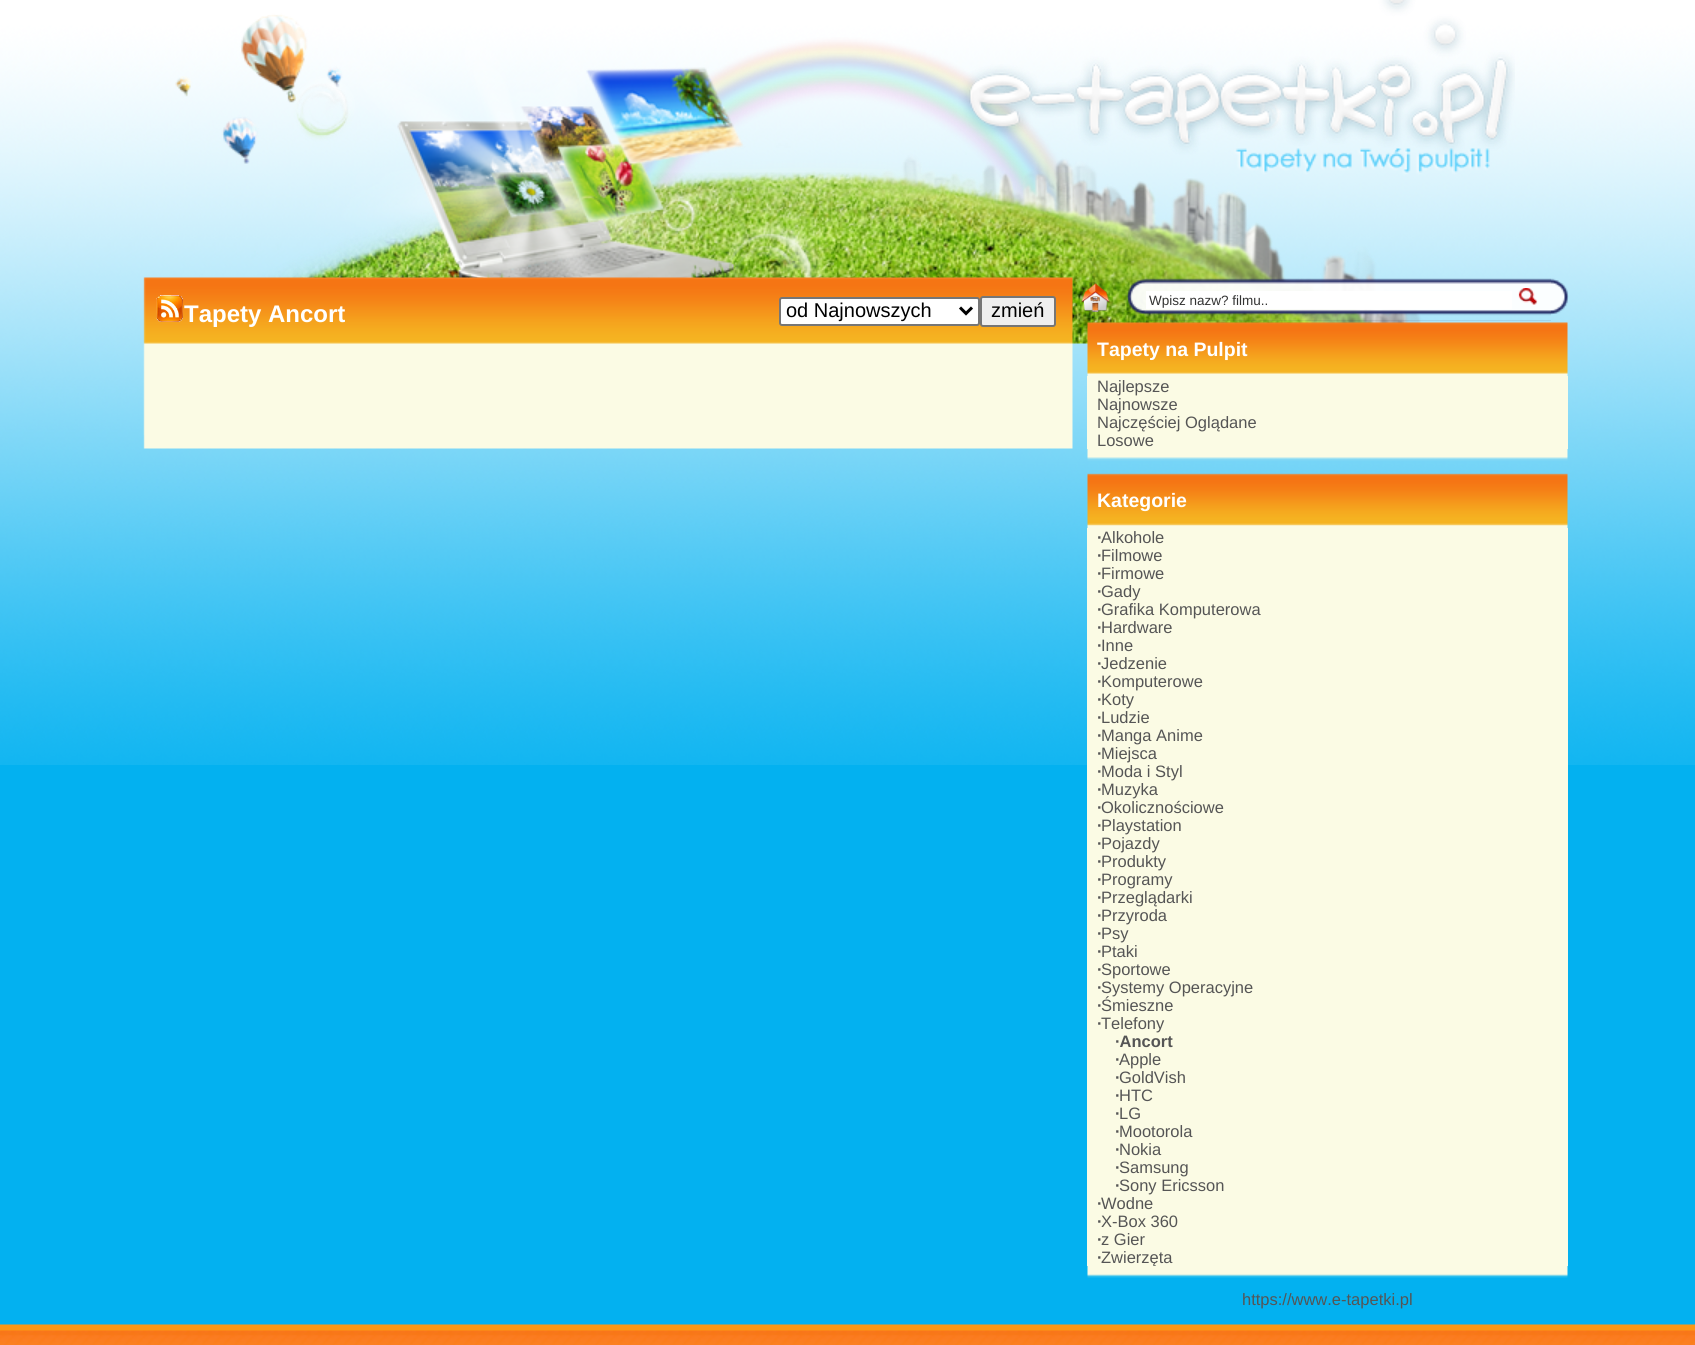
#include <cairo.h>
#include <math.h>
#include <stddef.h>


static void round_rect(cairo_t *cr, double x, double y, double w, double h, double r) {
    cairo_new_sub_path(cr);
    cairo_arc(cr, x + w - r, y + h - r, r, 0, M_PI / 2);
    cairo_arc(cr, x + r, y + h - r, r, M_PI / 2, M_PI);
    cairo_arc(cr, x + r, y + r, r, M_PI, 1.5 * M_PI);
    cairo_arc(cr, x + w - r, y + r, r, 1.5 * M_PI, 2 * M_PI);
    cairo_close_path(cr);
}

static void picture(cairo_t *cr, const char *path, double x, double y, double w, double h) {
    cairo_surface_t *image = cairo_image_surface_create_from_png(path);
    cairo_save(cr);
    cairo_set_source_surface(cr, image, x, y);
    cairo_rectangle(cr, x, y, w, h);
    cairo_fill(cr);
    cairo_restore(cr);
    cairo_surface_destroy(image);
}

int main(void) {
    cairo_surface_t *surface = cairo_image_surface_create(CAIRO_FORMAT_RGB24, 1695, 1345);
    cairo_t *cr = cairo_create(surface);
    cairo_font_options_t *options = cairo_font_options_create();
    cairo_font_options_set_hint_metrics(options, CAIRO_HINT_METRICS_OFF);
    cairo_font_options_set_hint_style(options, CAIRO_HINT_STYLE_NONE);
    cairo_set_font_options(cr, options);
    cairo_set_miter_limit(cr, 4);
    cairo_set_source_rgb(cr, 0.012, 0.694, 0.941);
    cairo_paint(cr);
    picture(cr, "img1.png", 0, 0, 1695, 765);
    picture(cr, "img2.png", 175, 0, 1340, 344);
    picture(cr, "img3.png", 143, 277, 930, 68);
    picture(cr, "img4.png", 156, 295, 27, 27);
    cairo_select_font_face(cr, "Liberation Sans", CAIRO_FONT_SLANT_NORMAL, CAIRO_FONT_WEIGHT_BOLD);
    cairo_set_font_size(cr, 24);
    cairo_set_source_rgb(cr, 1, 1, 1);
    cairo_move_to(cr, 184, 322);
    cairo_show_text(cr, "Tapety Ancort");
    round_rect(cr, 780, 298, 199, 27, 2);
    cairo_fill_preserve(cr);
    cairo_set_source_rgb(cr, 0.463, 0.463, 0.463);
    cairo_stroke(cr);
    cairo_new_path(cr);
    cairo_move_to(cr, 960, 307.5);
    cairo_line_to(cr, 966, 313.5);
    cairo_line_to(cr, 972, 307.5);
    cairo_set_source_rgb(cr, 0, 0, 0);
    cairo_set_line_width(cr, 3);
    cairo_stroke(cr);
    cairo_select_font_face(cr, "Liberation Sans", CAIRO_FONT_SLANT_NORMAL, CAIRO_FONT_WEIGHT_NORMAL);
    cairo_set_font_size(cr, 20);
    cairo_move_to(cr, 786, 317);
    cairo_show_text(cr, "od Najnowszych");
    cairo_set_source_rgb(cr, 0.937, 0.937, 0.937);
    round_rect(cr, 981, 297, 74, 29, 2);
    cairo_fill_preserve(cr);
    cairo_set_source_rgb(cr, 0.463, 0.463, 0.463);
    cairo_set_line_width(cr, 2);
    cairo_stroke(cr);
    cairo_set_source_rgb(cr, 0, 0, 0);
    cairo_move_to(cr, 991, 317);
    cairo_show_text(cr, "zmień");
    picture(cr, "img5.png", 143, 345, 930, 90);
    picture(cr, "img6.png", 143, 435, 930, 14);
    picture(cr, "img7.png", 1081, 283, 29, 29);
    picture(cr, "img8.png", 1126, 278, 20, 38);
    picture(cr, "img9.png", 1146, 278, 405, 43);
    cairo_set_source_rgb(cr, 1, 1, 1);
    cairo_rectangle(cr, 1146, 291, 366, 18);
    cairo_fill(cr);
    cairo_set_font_size(cr, 13.5);
    cairo_set_source_rgb(cr, 0.2, 0.2, 0.2);
    cairo_move_to(cr, 1149, 305);
    cairo_show_text(cr, "Wpisz nazw? filmu..");
    picture(cr, "img10.png", 1518, 288, 20, 17);
    picture(cr, "img11.png", 1551, 278, 18, 37);
    picture(cr, "img12.png", 1087, 322, 481, 54);
    cairo_select_font_face(cr, "Liberation Sans", CAIRO_FONT_SLANT_NORMAL, CAIRO_FONT_WEIGHT_BOLD);
    cairo_set_font_size(cr, 19.5);
    cairo_set_source_rgb(cr, 1, 1, 1);
    cairo_move_to(cr, 1097, 356);
    cairo_show_text(cr, "Tapety na Pulpit");
    cairo_set_source_rgb(cr, 0.984, 0.984, 0.894);
    cairo_rectangle(cr, 1087, 376, 481, 73);
    cairo_fill(cr);
    cairo_select_font_face(cr, "Liberation Sans", CAIRO_FONT_SLANT_NORMAL, CAIRO_FONT_WEIGHT_NORMAL);
    cairo_set_font_size(cr, 16.5);
    cairo_set_source_rgb(cr, 0.333, 0.333, 0.333);
    cairo_move_to(cr, 1097, 392);
    cairo_show_text(cr, "Najlepsze");
    cairo_move_to(cr, 1097, 410);
    cairo_show_text(cr, "Najnowsze");
    cairo_move_to(cr, 1097, 428);
    cairo_show_text(cr, "Najczęściej Oglądane");
    cairo_move_to(cr, 1097, 446);
    cairo_show_text(cr, "Losowe");
    picture(cr, "img13.png", 1087, 449, 481, 12);
    picture(cr, "img14.png", 1087, 473, 481, 55);
    cairo_select_font_face(cr, "Liberation Sans", CAIRO_FONT_SLANT_NORMAL, CAIRO_FONT_WEIGHT_BOLD);
    cairo_set_font_size(cr, 19.5);
    cairo_set_source_rgb(cr, 1, 1, 1);
    cairo_move_to(cr, 1097, 507);
    cairo_show_text(cr, "Kategorie");
    cairo_set_source_rgb(cr, 0.984, 0.984, 0.894);
    cairo_rectangle(cr, 1087, 528, 481, 738);
    cairo_fill(cr);
    cairo_set_font_size(cr, 16.5);
    cairo_set_source_rgb(cr, 0.333, 0.333, 0.333);
    cairo_move_to(cr, 1097, 543);
    cairo_show_text(cr, "∙");
    cairo_select_font_face(cr, "Liberation Sans", CAIRO_FONT_SLANT_NORMAL, CAIRO_FONT_WEIGHT_NORMAL);
    cairo_move_to(cr, 1101, 543);
    cairo_show_text(cr, "Alkohole");
    cairo_select_font_face(cr, "Liberation Sans", CAIRO_FONT_SLANT_NORMAL, CAIRO_FONT_WEIGHT_BOLD);
    cairo_move_to(cr, 1097, 561);
    cairo_show_text(cr, "∙");
    cairo_select_font_face(cr, "Liberation Sans", CAIRO_FONT_SLANT_NORMAL, CAIRO_FONT_WEIGHT_NORMAL);
    cairo_move_to(cr, 1101, 561);
    cairo_show_text(cr, "Filmowe");
    cairo_select_font_face(cr, "Liberation Sans", CAIRO_FONT_SLANT_NORMAL, CAIRO_FONT_WEIGHT_BOLD);
    cairo_move_to(cr, 1097, 579);
    cairo_show_text(cr, "∙");
    cairo_select_font_face(cr, "Liberation Sans", CAIRO_FONT_SLANT_NORMAL, CAIRO_FONT_WEIGHT_NORMAL);
    cairo_move_to(cr, 1101, 579);
    cairo_show_text(cr, "Firmowe");
    cairo_select_font_face(cr, "Liberation Sans", CAIRO_FONT_SLANT_NORMAL, CAIRO_FONT_WEIGHT_BOLD);
    cairo_move_to(cr, 1097, 597);
    cairo_show_text(cr, "∙");
    cairo_select_font_face(cr, "Liberation Sans", CAIRO_FONT_SLANT_NORMAL, CAIRO_FONT_WEIGHT_NORMAL);
    cairo_move_to(cr, 1101, 597);
    cairo_show_text(cr, "Gady");
    cairo_select_font_face(cr, "Liberation Sans", CAIRO_FONT_SLANT_NORMAL, CAIRO_FONT_WEIGHT_BOLD);
    cairo_move_to(cr, 1097, 615);
    cairo_show_text(cr, "∙");
    cairo_select_font_face(cr, "Liberation Sans", CAIRO_FONT_SLANT_NORMAL, CAIRO_FONT_WEIGHT_NORMAL);
    cairo_move_to(cr, 1101, 615);
    cairo_show_text(cr, "Grafika Komputerowa");
    cairo_select_font_face(cr, "Liberation Sans", CAIRO_FONT_SLANT_NORMAL, CAIRO_FONT_WEIGHT_BOLD);
    cairo_move_to(cr, 1097, 633);
    cairo_show_text(cr, "∙");
    cairo_select_font_face(cr, "Liberation Sans", CAIRO_FONT_SLANT_NORMAL, CAIRO_FONT_WEIGHT_NORMAL);
    cairo_move_to(cr, 1101, 633);
    cairo_show_text(cr, "Hardware");
    cairo_select_font_face(cr, "Liberation Sans", CAIRO_FONT_SLANT_NORMAL, CAIRO_FONT_WEIGHT_BOLD);
    cairo_move_to(cr, 1097, 651);
    cairo_show_text(cr, "∙");
    cairo_select_font_face(cr, "Liberation Sans", CAIRO_FONT_SLANT_NORMAL, CAIRO_FONT_WEIGHT_NORMAL);
    cairo_move_to(cr, 1101, 651);
    cairo_show_text(cr, "Inne");
    cairo_select_font_face(cr, "Liberation Sans", CAIRO_FONT_SLANT_NORMAL, CAIRO_FONT_WEIGHT_BOLD);
    cairo_move_to(cr, 1097, 669);
    cairo_show_text(cr, "∙");
    cairo_select_font_face(cr, "Liberation Sans", CAIRO_FONT_SLANT_NORMAL, CAIRO_FONT_WEIGHT_NORMAL);
    cairo_move_to(cr, 1101, 669);
    cairo_show_text(cr, "Jedzenie");
    cairo_select_font_face(cr, "Liberation Sans", CAIRO_FONT_SLANT_NORMAL, CAIRO_FONT_WEIGHT_BOLD);
    cairo_move_to(cr, 1097, 687);
    cairo_show_text(cr, "∙");
    cairo_select_font_face(cr, "Liberation Sans", CAIRO_FONT_SLANT_NORMAL, CAIRO_FONT_WEIGHT_NORMAL);
    cairo_move_to(cr, 1101, 687);
    cairo_show_text(cr, "Komputerowe");
    cairo_select_font_face(cr, "Liberation Sans", CAIRO_FONT_SLANT_NORMAL, CAIRO_FONT_WEIGHT_BOLD);
    cairo_move_to(cr, 1097, 705);
    cairo_show_text(cr, "∙");
    cairo_select_font_face(cr, "Liberation Sans", CAIRO_FONT_SLANT_NORMAL, CAIRO_FONT_WEIGHT_NORMAL);
    cairo_move_to(cr, 1101, 705);
    cairo_show_text(cr, "Koty");
    cairo_select_font_face(cr, "Liberation Sans", CAIRO_FONT_SLANT_NORMAL, CAIRO_FONT_WEIGHT_BOLD);
    cairo_move_to(cr, 1097, 723);
    cairo_show_text(cr, "∙");
    cairo_select_font_face(cr, "Liberation Sans", CAIRO_FONT_SLANT_NORMAL, CAIRO_FONT_WEIGHT_NORMAL);
    cairo_move_to(cr, 1101, 723);
    cairo_show_text(cr, "Ludzie");
    cairo_select_font_face(cr, "Liberation Sans", CAIRO_FONT_SLANT_NORMAL, CAIRO_FONT_WEIGHT_BOLD);
    cairo_move_to(cr, 1097, 741);
    cairo_show_text(cr, "∙");
    cairo_select_font_face(cr, "Liberation Sans", CAIRO_FONT_SLANT_NORMAL, CAIRO_FONT_WEIGHT_NORMAL);
    cairo_move_to(cr, 1101, 741);
    cairo_show_text(cr, "Manga Anime");
    cairo_select_font_face(cr, "Liberation Sans", CAIRO_FONT_SLANT_NORMAL, CAIRO_FONT_WEIGHT_BOLD);
    cairo_move_to(cr, 1097, 759);
    cairo_show_text(cr, "∙");
    cairo_select_font_face(cr, "Liberation Sans", CAIRO_FONT_SLANT_NORMAL, CAIRO_FONT_WEIGHT_NORMAL);
    cairo_move_to(cr, 1101, 759);
    cairo_show_text(cr, "Miejsca");
    cairo_select_font_face(cr, "Liberation Sans", CAIRO_FONT_SLANT_NORMAL, CAIRO_FONT_WEIGHT_BOLD);
    cairo_move_to(cr, 1097, 777);
    cairo_show_text(cr, "∙");
    cairo_select_font_face(cr, "Liberation Sans", CAIRO_FONT_SLANT_NORMAL, CAIRO_FONT_WEIGHT_NORMAL);
    cairo_move_to(cr, 1101, 777);
    cairo_show_text(cr, "Moda i Styl");
    cairo_select_font_face(cr, "Liberation Sans", CAIRO_FONT_SLANT_NORMAL, CAIRO_FONT_WEIGHT_BOLD);
    cairo_move_to(cr, 1097, 795);
    cairo_show_text(cr, "∙");
    cairo_select_font_face(cr, "Liberation Sans", CAIRO_FONT_SLANT_NORMAL, CAIRO_FONT_WEIGHT_NORMAL);
    cairo_move_to(cr, 1101, 795);
    cairo_show_text(cr, "Muzyka");
    cairo_select_font_face(cr, "Liberation Sans", CAIRO_FONT_SLANT_NORMAL, CAIRO_FONT_WEIGHT_BOLD);
    cairo_move_to(cr, 1097, 813);
    cairo_show_text(cr, "∙");
    cairo_select_font_face(cr, "Liberation Sans", CAIRO_FONT_SLANT_NORMAL, CAIRO_FONT_WEIGHT_NORMAL);
    cairo_move_to(cr, 1101, 813);
    cairo_show_text(cr, "Okolicznościowe");
    cairo_select_font_face(cr, "Liberation Sans", CAIRO_FONT_SLANT_NORMAL, CAIRO_FONT_WEIGHT_BOLD);
    cairo_move_to(cr, 1097, 831);
    cairo_show_text(cr, "∙");
    cairo_select_font_face(cr, "Liberation Sans", CAIRO_FONT_SLANT_NORMAL, CAIRO_FONT_WEIGHT_NORMAL);
    cairo_move_to(cr, 1101, 831);
    cairo_show_text(cr, "Playstation");
    cairo_select_font_face(cr, "Liberation Sans", CAIRO_FONT_SLANT_NORMAL, CAIRO_FONT_WEIGHT_BOLD);
    cairo_move_to(cr, 1097, 849);
    cairo_show_text(cr, "∙");
    cairo_select_font_face(cr, "Liberation Sans", CAIRO_FONT_SLANT_NORMAL, CAIRO_FONT_WEIGHT_NORMAL);
    cairo_move_to(cr, 1101, 849);
    cairo_show_text(cr, "Pojazdy");
    cairo_select_font_face(cr, "Liberation Sans", CAIRO_FONT_SLANT_NORMAL, CAIRO_FONT_WEIGHT_BOLD);
    cairo_move_to(cr, 1097, 867);
    cairo_show_text(cr, "∙");
    cairo_select_font_face(cr, "Liberation Sans", CAIRO_FONT_SLANT_NORMAL, CAIRO_FONT_WEIGHT_NORMAL);
    cairo_move_to(cr, 1101, 867);
    cairo_show_text(cr, "Produkty");
    cairo_select_font_face(cr, "Liberation Sans", CAIRO_FONT_SLANT_NORMAL, CAIRO_FONT_WEIGHT_BOLD);
    cairo_move_to(cr, 1097, 885);
    cairo_show_text(cr, "∙");
    cairo_select_font_face(cr, "Liberation Sans", CAIRO_FONT_SLANT_NORMAL, CAIRO_FONT_WEIGHT_NORMAL);
    cairo_move_to(cr, 1101, 885);
    cairo_show_text(cr, "Programy");
    cairo_select_font_face(cr, "Liberation Sans", CAIRO_FONT_SLANT_NORMAL, CAIRO_FONT_WEIGHT_BOLD);
    cairo_move_to(cr, 1097, 903);
    cairo_show_text(cr, "∙");
    cairo_select_font_face(cr, "Liberation Sans", CAIRO_FONT_SLANT_NORMAL, CAIRO_FONT_WEIGHT_NORMAL);
    cairo_move_to(cr, 1101, 903);
    cairo_show_text(cr, "Przeglądarki");
    cairo_select_font_face(cr, "Liberation Sans", CAIRO_FONT_SLANT_NORMAL, CAIRO_FONT_WEIGHT_BOLD);
    cairo_move_to(cr, 1097, 921);
    cairo_show_text(cr, "∙");
    cairo_select_font_face(cr, "Liberation Sans", CAIRO_FONT_SLANT_NORMAL, CAIRO_FONT_WEIGHT_NORMAL);
    cairo_move_to(cr, 1101, 921);
    cairo_show_text(cr, "Przyroda");
    cairo_select_font_face(cr, "Liberation Sans", CAIRO_FONT_SLANT_NORMAL, CAIRO_FONT_WEIGHT_BOLD);
    cairo_move_to(cr, 1097, 939);
    cairo_show_text(cr, "∙");
    cairo_select_font_face(cr, "Liberation Sans", CAIRO_FONT_SLANT_NORMAL, CAIRO_FONT_WEIGHT_NORMAL);
    cairo_move_to(cr, 1101, 939);
    cairo_show_text(cr, "Psy");
    cairo_select_font_face(cr, "Liberation Sans", CAIRO_FONT_SLANT_NORMAL, CAIRO_FONT_WEIGHT_BOLD);
    cairo_move_to(cr, 1097, 957);
    cairo_show_text(cr, "∙");
    cairo_select_font_face(cr, "Liberation Sans", CAIRO_FONT_SLANT_NORMAL, CAIRO_FONT_WEIGHT_NORMAL);
    cairo_move_to(cr, 1101, 957);
    cairo_show_text(cr, "Ptaki");
    cairo_select_font_face(cr, "Liberation Sans", CAIRO_FONT_SLANT_NORMAL, CAIRO_FONT_WEIGHT_BOLD);
    cairo_move_to(cr, 1097, 975);
    cairo_show_text(cr, "∙");
    cairo_select_font_face(cr, "Liberation Sans", CAIRO_FONT_SLANT_NORMAL, CAIRO_FONT_WEIGHT_NORMAL);
    cairo_move_to(cr, 1101, 975);
    cairo_show_text(cr, "Sportowe");
    cairo_select_font_face(cr, "Liberation Sans", CAIRO_FONT_SLANT_NORMAL, CAIRO_FONT_WEIGHT_BOLD);
    cairo_move_to(cr, 1097, 993);
    cairo_show_text(cr, "∙");
    cairo_select_font_face(cr, "Liberation Sans", CAIRO_FONT_SLANT_NORMAL, CAIRO_FONT_WEIGHT_NORMAL);
    cairo_move_to(cr, 1101, 993);
    cairo_show_text(cr, "Systemy Operacyjne");
    cairo_select_font_face(cr, "Liberation Sans", CAIRO_FONT_SLANT_NORMAL, CAIRO_FONT_WEIGHT_BOLD);
    cairo_move_to(cr, 1097, 1011);
    cairo_show_text(cr, "∙");
    cairo_select_font_face(cr, "Liberation Sans", CAIRO_FONT_SLANT_NORMAL, CAIRO_FONT_WEIGHT_NORMAL);
    cairo_move_to(cr, 1101, 1011);
    cairo_show_text(cr, "Śmieszne");
    cairo_select_font_face(cr, "Liberation Sans", CAIRO_FONT_SLANT_NORMAL, CAIRO_FONT_WEIGHT_BOLD);
    cairo_move_to(cr, 1097, 1029);
    cairo_show_text(cr, "∙");
    cairo_select_font_face(cr, "Liberation Sans", CAIRO_FONT_SLANT_NORMAL, CAIRO_FONT_WEIGHT_NORMAL);
    cairo_move_to(cr, 1101, 1029);
    cairo_show_text(cr, "Telefony");
    cairo_select_font_face(cr, "Liberation Sans", CAIRO_FONT_SLANT_NORMAL, CAIRO_FONT_WEIGHT_BOLD);
    cairo_move_to(cr, 1115, 1047);
    cairo_show_text(cr, "∙Ancort");
    cairo_move_to(cr, 1115, 1065);
    cairo_show_text(cr, "∙");
    cairo_select_font_face(cr, "Liberation Sans", CAIRO_FONT_SLANT_NORMAL, CAIRO_FONT_WEIGHT_NORMAL);
    cairo_move_to(cr, 1119, 1065);
    cairo_show_text(cr, "Apple");
    cairo_select_font_face(cr, "Liberation Sans", CAIRO_FONT_SLANT_NORMAL, CAIRO_FONT_WEIGHT_BOLD);
    cairo_move_to(cr, 1115, 1083);
    cairo_show_text(cr, "∙");
    cairo_select_font_face(cr, "Liberation Sans", CAIRO_FONT_SLANT_NORMAL, CAIRO_FONT_WEIGHT_NORMAL);
    cairo_move_to(cr, 1119, 1083);
    cairo_show_text(cr, "GoldVish");
    cairo_select_font_face(cr, "Liberation Sans", CAIRO_FONT_SLANT_NORMAL, CAIRO_FONT_WEIGHT_BOLD);
    cairo_move_to(cr, 1115, 1101);
    cairo_show_text(cr, "∙");
    cairo_select_font_face(cr, "Liberation Sans", CAIRO_FONT_SLANT_NORMAL, CAIRO_FONT_WEIGHT_NORMAL);
    cairo_move_to(cr, 1119, 1101);
    cairo_show_text(cr, "HTC");
    cairo_select_font_face(cr, "Liberation Sans", CAIRO_FONT_SLANT_NORMAL, CAIRO_FONT_WEIGHT_BOLD);
    cairo_move_to(cr, 1115, 1119);
    cairo_show_text(cr, "∙");
    cairo_select_font_face(cr, "Liberation Sans", CAIRO_FONT_SLANT_NORMAL, CAIRO_FONT_WEIGHT_NORMAL);
    cairo_move_to(cr, 1119, 1119);
    cairo_show_text(cr, "LG");
    cairo_select_font_face(cr, "Liberation Sans", CAIRO_FONT_SLANT_NORMAL, CAIRO_FONT_WEIGHT_BOLD);
    cairo_move_to(cr, 1115, 1137);
    cairo_show_text(cr, "∙");
    cairo_select_font_face(cr, "Liberation Sans", CAIRO_FONT_SLANT_NORMAL, CAIRO_FONT_WEIGHT_NORMAL);
    cairo_move_to(cr, 1119, 1137);
    cairo_show_text(cr, "Mootorola");
    cairo_select_font_face(cr, "Liberation Sans", CAIRO_FONT_SLANT_NORMAL, CAIRO_FONT_WEIGHT_BOLD);
    cairo_move_to(cr, 1115, 1155);
    cairo_show_text(cr, "∙");
    cairo_select_font_face(cr, "Liberation Sans", CAIRO_FONT_SLANT_NORMAL, CAIRO_FONT_WEIGHT_NORMAL);
    cairo_move_to(cr, 1119, 1155);
    cairo_show_text(cr, "Nokia");
    cairo_select_font_face(cr, "Liberation Sans", CAIRO_FONT_SLANT_NORMAL, CAIRO_FONT_WEIGHT_BOLD);
    cairo_move_to(cr, 1115, 1173);
    cairo_show_text(cr, "∙");
    cairo_select_font_face(cr, "Liberation Sans", CAIRO_FONT_SLANT_NORMAL, CAIRO_FONT_WEIGHT_NORMAL);
    cairo_move_to(cr, 1119, 1173);
    cairo_show_text(cr, "Samsung");
    cairo_select_font_face(cr, "Liberation Sans", CAIRO_FONT_SLANT_NORMAL, CAIRO_FONT_WEIGHT_BOLD);
    cairo_move_to(cr, 1115, 1191);
    cairo_show_text(cr, "∙");
    cairo_select_font_face(cr, "Liberation Sans", CAIRO_FONT_SLANT_NORMAL, CAIRO_FONT_WEIGHT_NORMAL);
    cairo_move_to(cr, 1119, 1191);
    cairo_show_text(cr, "Sony Ericsson");
    cairo_select_font_face(cr, "Liberation Sans", CAIRO_FONT_SLANT_NORMAL, CAIRO_FONT_WEIGHT_BOLD);
    cairo_move_to(cr, 1097, 1209);
    cairo_show_text(cr, "∙");
    cairo_select_font_face(cr, "Liberation Sans", CAIRO_FONT_SLANT_NORMAL, CAIRO_FONT_WEIGHT_NORMAL);
    cairo_move_to(cr, 1101, 1209);
    cairo_show_text(cr, "Wodne");
    cairo_select_font_face(cr, "Liberation Sans", CAIRO_FONT_SLANT_NORMAL, CAIRO_FONT_WEIGHT_BOLD);
    cairo_move_to(cr, 1097, 1227);
    cairo_show_text(cr, "∙");
    cairo_select_font_face(cr, "Liberation Sans", CAIRO_FONT_SLANT_NORMAL, CAIRO_FONT_WEIGHT_NORMAL);
    cairo_move_to(cr, 1101, 1227);
    cairo_show_text(cr, "X-Box 360");
    cairo_select_font_face(cr, "Liberation Sans", CAIRO_FONT_SLANT_NORMAL, CAIRO_FONT_WEIGHT_BOLD);
    cairo_move_to(cr, 1097, 1245);
    cairo_show_text(cr, "∙");
    cairo_select_font_face(cr, "Liberation Sans", CAIRO_FONT_SLANT_NORMAL, CAIRO_FONT_WEIGHT_NORMAL);
    cairo_move_to(cr, 1101, 1245);
    cairo_show_text(cr, "z Gier");
    cairo_select_font_face(cr, "Liberation Sans", CAIRO_FONT_SLANT_NORMAL, CAIRO_FONT_WEIGHT_BOLD);
    cairo_move_to(cr, 1097, 1263);
    cairo_show_text(cr, "∙");
    cairo_select_font_face(cr, "Liberation Sans", CAIRO_FONT_SLANT_NORMAL, CAIRO_FONT_WEIGHT_NORMAL);
    cairo_move_to(cr, 1101, 1263);
    cairo_show_text(cr, "Zwierzęta");
    picture(cr, "img15.png", 1087, 1266, 481, 12);
    cairo_move_to(cr, 1242, 1305);
    cairo_show_text(cr, "https://www.e-tapetki.pl");
    picture(cr, "img16.png", 0, 1324, 1695, 21);
    cairo_surface_write_to_png(surface, "page.png");
    cairo_font_options_destroy(options);
    cairo_destroy(cr);
    cairo_surface_destroy(surface);
    return 0;
}
